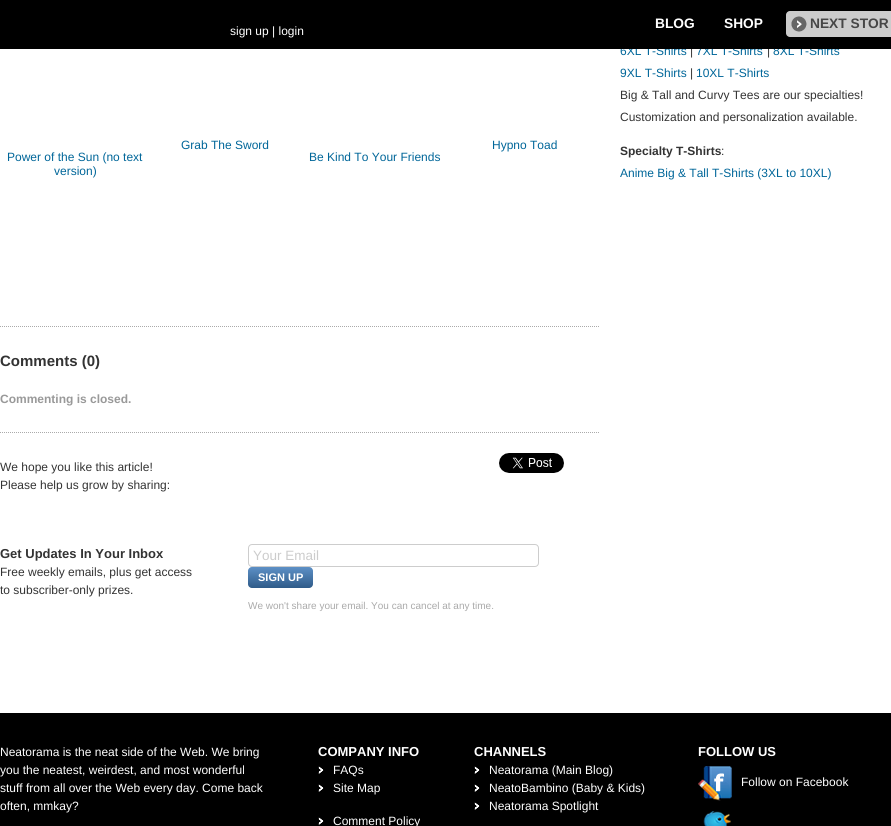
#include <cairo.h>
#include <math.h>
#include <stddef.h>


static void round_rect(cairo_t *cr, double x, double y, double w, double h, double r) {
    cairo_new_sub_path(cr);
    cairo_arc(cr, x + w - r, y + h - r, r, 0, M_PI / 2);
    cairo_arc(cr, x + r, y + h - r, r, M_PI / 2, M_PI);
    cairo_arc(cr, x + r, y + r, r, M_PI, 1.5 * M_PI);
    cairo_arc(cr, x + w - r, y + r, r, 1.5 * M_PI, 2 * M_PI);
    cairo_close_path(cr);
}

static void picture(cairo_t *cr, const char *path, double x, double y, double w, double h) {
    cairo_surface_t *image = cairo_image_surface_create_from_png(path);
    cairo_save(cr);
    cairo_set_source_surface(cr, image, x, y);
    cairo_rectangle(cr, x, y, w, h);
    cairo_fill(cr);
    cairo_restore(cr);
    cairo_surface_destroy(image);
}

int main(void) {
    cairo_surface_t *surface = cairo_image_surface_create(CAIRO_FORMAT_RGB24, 891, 826);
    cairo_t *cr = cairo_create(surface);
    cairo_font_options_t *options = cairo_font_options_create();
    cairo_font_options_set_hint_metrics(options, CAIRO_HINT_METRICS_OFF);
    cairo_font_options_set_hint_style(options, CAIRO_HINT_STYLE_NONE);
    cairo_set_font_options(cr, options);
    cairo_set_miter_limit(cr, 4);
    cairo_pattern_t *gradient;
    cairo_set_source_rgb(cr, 1, 1, 1);
    cairo_paint(cr);
    cairo_select_font_face(cr, "Liberation Sans", CAIRO_FONT_SLANT_NORMAL, CAIRO_FONT_WEIGHT_NORMAL);
    cairo_set_font_size(cr, 12);
    cairo_set_source_rgb(cr, 0, 0.4, 0.6);
    cairo_move_to(cr, 620, 55);
    cairo_show_text(cr, "6XL T-Shirts");
    cairo_set_source_rgb(cr, 0.2, 0.2, 0.2);
    cairo_move_to(cr, 690, 55);
    cairo_show_text(cr, "|");
    cairo_set_source_rgb(cr, 0, 0.4, 0.6);
    cairo_move_to(cr, 696, 55);
    cairo_show_text(cr, "7XL T-Shirts");
    cairo_set_source_rgb(cr, 0.2, 0.2, 0.2);
    cairo_move_to(cr, 767, 55);
    cairo_show_text(cr, "|");
    cairo_set_source_rgb(cr, 0, 0.4, 0.6);
    cairo_move_to(cr, 773, 55);
    cairo_show_text(cr, "8XL T-Shirts");
    cairo_set_source_rgb(cr, 0, 0, 0);
    cairo_rectangle(cr, 0, 0, 891, 49);
    cairo_fill(cr);
    cairo_select_font_face(cr, "Liberation Sans", CAIRO_FONT_SLANT_NORMAL, CAIRO_FONT_WEIGHT_BOLD);
    cairo_set_font_size(cr, 13.75);
    cairo_set_source_rgb(cr, 1, 1, 1);
    cairo_move_to(cr, 655, 28);
    cairo_show_text(cr, "BLOG");
    cairo_move_to(cr, 724, 28);
    cairo_show_text(cr, "SHOP");
    cairo_set_source_rgb(cr, 0.8, 0.8, 0.8);
    round_rect(cr, 786, 11, 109, 26, 4);
    cairo_fill(cr);
    picture(cr, "img1.png", 791, 16, 16, 16);
    cairo_set_source_rgb(cr, 0.275, 0.275, 0.275);
    cairo_move_to(cr, 810, 28);
    cairo_show_text(cr, "NEXT STOR");
    cairo_select_font_face(cr, "Liberation Sans", CAIRO_FONT_SLANT_NORMAL, CAIRO_FONT_WEIGHT_NORMAL);
    cairo_set_font_size(cr, 12);
    cairo_set_source_rgb(cr, 1, 1, 1);
    cairo_move_to(cr, 230, 35);
    cairo_show_text(cr, "sign up | login");
    cairo_set_source_rgb(cr, 0, 0.4, 0.6);
    cairo_move_to(cr, 620, 77);
    cairo_show_text(cr, "9XL T-Shirts");
    cairo_set_source_rgb(cr, 0.2, 0.2, 0.2);
    cairo_move_to(cr, 690, 77);
    cairo_show_text(cr, "|");
    cairo_set_source_rgb(cr, 0, 0.4, 0.6);
    cairo_move_to(cr, 696, 77);
    cairo_show_text(cr, "10XL T-Shirts");
    cairo_set_source_rgb(cr, 0.2, 0.2, 0.2);
    cairo_move_to(cr, 620, 99);
    cairo_show_text(cr, "Big & Tall and Curvy Tees are our specialties!");
    cairo_move_to(cr, 620, 121);
    cairo_show_text(cr, "Customization and personalization available.");
    cairo_select_font_face(cr, "Liberation Sans", CAIRO_FONT_SLANT_NORMAL, CAIRO_FONT_WEIGHT_BOLD);
    cairo_move_to(cr, 620, 155);
    cairo_show_text(cr, "Specialty T-Shirts");
    cairo_select_font_face(cr, "Liberation Sans", CAIRO_FONT_SLANT_NORMAL, CAIRO_FONT_WEIGHT_NORMAL);
    cairo_move_to(cr, 721, 155);
    cairo_show_text(cr, ":");
    cairo_set_source_rgb(cr, 0, 0.4, 0.6);
    cairo_move_to(cr, 620, 177);
    cairo_show_text(cr, "Anime Big & Tall T-Shirts (3XL to 10XL)");
    cairo_move_to(cr, 181, 149);
    cairo_show_text(cr, "Grab The Sword");
    cairo_move_to(cr, 492, 149);
    cairo_show_text(cr, "Hypno Toad");
    cairo_move_to(cr, 7, 161);
    cairo_show_text(cr, "Power of the Sun (no text");
    cairo_move_to(cr, 54, 175);
    cairo_show_text(cr, "version)");
    cairo_move_to(cr, 309, 161);
    cairo_show_text(cr, "Be Kind To Your Friends");
    cairo_new_path(cr);
    cairo_move_to(cr, 0, 326.5);
    cairo_line_to(cr, 600, 326.5);
    cairo_set_source_rgb(cr, 0.667, 0.667, 0.667);
    cairo_set_line_width(cr, 1);
    cairo_set_dash(cr, (double[]){1, 1}, 2, 0);
    cairo_stroke(cr);
    cairo_select_font_face(cr, "Liberation Sans", CAIRO_FONT_SLANT_NORMAL, CAIRO_FONT_WEIGHT_BOLD);
    cairo_set_font_size(cr, 15);
    cairo_set_source_rgb(cr, 0.2, 0.2, 0.2);
    cairo_move_to(cr, 0, 366);
    cairo_show_text(cr, "Comments (0)");
    cairo_set_font_size(cr, 12);
    cairo_set_source_rgb(cr, 0.6, 0.6, 0.6);
    cairo_move_to(cr, 0, 403);
    cairo_show_text(cr, "Commenting is closed.");
    cairo_new_path(cr);
    cairo_move_to(cr, 0, 432.5);
    cairo_line_to(cr, 600, 432.5);
    cairo_set_source_rgb(cr, 0.667, 0.667, 0.667);
    cairo_stroke(cr);
    cairo_select_font_face(cr, "Liberation Sans", CAIRO_FONT_SLANT_NORMAL, CAIRO_FONT_WEIGHT_NORMAL);
    cairo_set_source_rgb(cr, 0.2, 0.2, 0.2);
    cairo_move_to(cr, 0, 471);
    cairo_show_text(cr, "We hope you like this article!");
    cairo_move_to(cr, 0, 489);
    cairo_show_text(cr, "Please help us grow by sharing:");
    picture(cr, "img2.png", 499, 453, 65, 20);
    cairo_select_font_face(cr, "Liberation Sans", CAIRO_FONT_SLANT_NORMAL, CAIRO_FONT_WEIGHT_BOLD);
    cairo_set_font_size(cr, 13);
    cairo_move_to(cr, 0, 558);
    cairo_show_text(cr, "Get Updates In Your Inbox");
    cairo_select_font_face(cr, "Liberation Sans", CAIRO_FONT_SLANT_NORMAL, CAIRO_FONT_WEIGHT_NORMAL);
    cairo_set_font_size(cr, 12);
    cairo_move_to(cr, 0, 576);
    cairo_show_text(cr, "Free weekly emails, plus get access");
    cairo_move_to(cr, 0, 594);
    cairo_show_text(cr, "to subscriber-only prizes.");
    round_rect(cr, 248.5, 544.5, 290, 22, 3.5);
    cairo_set_source_rgb(cr, 0.804, 0.804, 0.804);
    cairo_set_dash(cr, NULL, 0, 0);
    cairo_stroke(cr);
    cairo_set_font_size(cr, 13.5);
    cairo_set_source_rgb(cr, 0.8, 0.8, 0.8);
    cairo_move_to(cr, 253, 560);
    cairo_show_text(cr, "Your Email");
    gradient = cairo_pattern_create_linear(281, 567, 281, 588);
    cairo_pattern_add_color_stop_rgba(gradient, 0, 0.365, 0.565, 0.776, 1);
    cairo_pattern_add_color_stop_rgba(gradient, 1, 0.184, 0.357, 0.537, 1);
    cairo_set_source(cr, gradient);
    cairo_pattern_destroy(gradient);
    round_rect(cr, 248, 567, 65, 21, 4);
    cairo_fill(cr);
    cairo_select_font_face(cr, "Liberation Sans", CAIRO_FONT_SLANT_NORMAL, CAIRO_FONT_WEIGHT_BOLD);
    cairo_set_font_size(cr, 11);
    cairo_set_source_rgb(cr, 1, 1, 1);
    cairo_move_to(cr, 258, 581);
    cairo_show_text(cr, "SIGN UP");
    cairo_select_font_face(cr, "Liberation Sans", CAIRO_FONT_SLANT_NORMAL, CAIRO_FONT_WEIGHT_NORMAL);
    cairo_set_font_size(cr, 10);
    cairo_set_source_rgb(cr, 0.667, 0.667, 0.667);
    cairo_move_to(cr, 248, 609);
    cairo_show_text(cr, "We won't share your email. You can cancel at any time.");
    cairo_set_source_rgb(cr, 0, 0, 0);
    cairo_rectangle(cr, 0, 713, 891, 113);
    cairo_fill(cr);
    cairo_set_font_size(cr, 12);
    cairo_set_source_rgb(cr, 1, 1, 1);
    cairo_move_to(cr, 0, 756);
    cairo_show_text(cr, "Neatorama is the neat side of the Web. We bring");
    cairo_move_to(cr, 0, 774);
    cairo_show_text(cr, "you the neatest, weirdest, and most wonderful");
    cairo_move_to(cr, 0, 792);
    cairo_show_text(cr, "stuff from all over the Web every day. Come back");
    cairo_move_to(cr, 0, 810);
    cairo_show_text(cr, "often, mmkay?");
    cairo_select_font_face(cr, "Liberation Sans", CAIRO_FONT_SLANT_NORMAL, CAIRO_FONT_WEIGHT_BOLD);
    cairo_set_font_size(cr, 13);
    cairo_move_to(cr, 318, 756);
    cairo_show_text(cr, "COMPANY INFO");
    picture(cr, "img3.png", 318, 766, 6, 8);
    cairo_select_font_face(cr, "Liberation Sans", CAIRO_FONT_SLANT_NORMAL, CAIRO_FONT_WEIGHT_NORMAL);
    cairo_set_font_size(cr, 12);
    cairo_move_to(cr, 333, 774);
    cairo_show_text(cr, "FAQs");
    picture(cr, "img3.png", 318, 784, 6, 8);
    cairo_move_to(cr, 333, 792);
    cairo_show_text(cr, "Site Map");
    picture(cr, "img3.png", 318, 817, 6, 8);
    cairo_move_to(cr, 333, 825);
    cairo_show_text(cr, "Comment Policy");
    cairo_select_font_face(cr, "Liberation Sans", CAIRO_FONT_SLANT_NORMAL, CAIRO_FONT_WEIGHT_BOLD);
    cairo_set_font_size(cr, 13);
    cairo_move_to(cr, 474, 756);
    cairo_show_text(cr, "CHANNELS");
    picture(cr, "img3.png", 474, 766, 6, 8);
    cairo_select_font_face(cr, "Liberation Sans", CAIRO_FONT_SLANT_NORMAL, CAIRO_FONT_WEIGHT_NORMAL);
    cairo_set_font_size(cr, 12);
    cairo_move_to(cr, 489, 774);
    cairo_show_text(cr, "Neatorama (Main Blog)");
    picture(cr, "img3.png", 474, 784, 6, 8);
    cairo_move_to(cr, 489, 792);
    cairo_show_text(cr, "NeatoBambino (Baby & Kids)");
    picture(cr, "img3.png", 474, 802, 6, 8);
    cairo_move_to(cr, 489, 810);
    cairo_show_text(cr, "Neatorama Spotlight");
    cairo_select_font_face(cr, "Liberation Sans", CAIRO_FONT_SLANT_NORMAL, CAIRO_FONT_WEIGHT_BOLD);
    cairo_set_font_size(cr, 13);
    cairo_move_to(cr, 698, 756);
    cairo_show_text(cr, "FOLLOW US");
    picture(cr, "img4.png", 698, 766, 34, 35);
    cairo_select_font_face(cr, "Liberation Sans", CAIRO_FONT_SLANT_NORMAL, CAIRO_FONT_WEIGHT_NORMAL);
    cairo_set_font_size(cr, 12);
    cairo_move_to(cr, 741, 786);
    cairo_show_text(cr, "Follow on Facebook");
    picture(cr, "img5.png", 703, 811, 28, 15);
    cairo_surface_write_to_png(surface, "page.png");
    cairo_font_options_destroy(options);
    cairo_destroy(cr);
    cairo_surface_destroy(surface);
    return 0;
}
